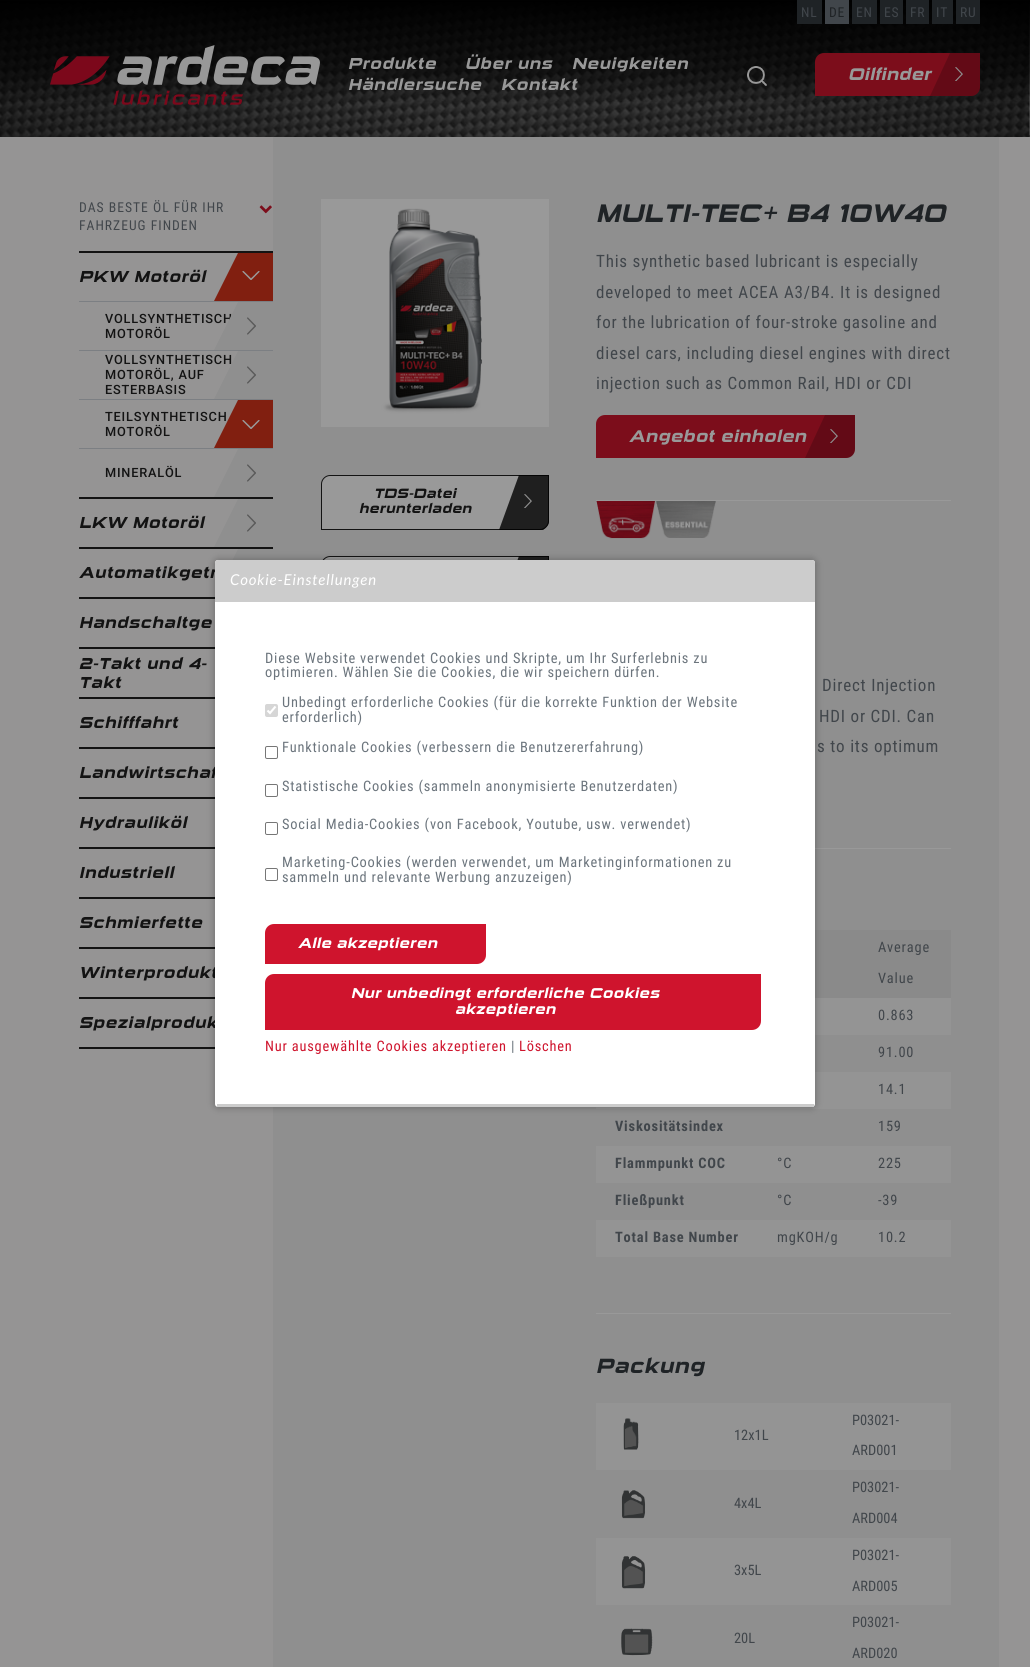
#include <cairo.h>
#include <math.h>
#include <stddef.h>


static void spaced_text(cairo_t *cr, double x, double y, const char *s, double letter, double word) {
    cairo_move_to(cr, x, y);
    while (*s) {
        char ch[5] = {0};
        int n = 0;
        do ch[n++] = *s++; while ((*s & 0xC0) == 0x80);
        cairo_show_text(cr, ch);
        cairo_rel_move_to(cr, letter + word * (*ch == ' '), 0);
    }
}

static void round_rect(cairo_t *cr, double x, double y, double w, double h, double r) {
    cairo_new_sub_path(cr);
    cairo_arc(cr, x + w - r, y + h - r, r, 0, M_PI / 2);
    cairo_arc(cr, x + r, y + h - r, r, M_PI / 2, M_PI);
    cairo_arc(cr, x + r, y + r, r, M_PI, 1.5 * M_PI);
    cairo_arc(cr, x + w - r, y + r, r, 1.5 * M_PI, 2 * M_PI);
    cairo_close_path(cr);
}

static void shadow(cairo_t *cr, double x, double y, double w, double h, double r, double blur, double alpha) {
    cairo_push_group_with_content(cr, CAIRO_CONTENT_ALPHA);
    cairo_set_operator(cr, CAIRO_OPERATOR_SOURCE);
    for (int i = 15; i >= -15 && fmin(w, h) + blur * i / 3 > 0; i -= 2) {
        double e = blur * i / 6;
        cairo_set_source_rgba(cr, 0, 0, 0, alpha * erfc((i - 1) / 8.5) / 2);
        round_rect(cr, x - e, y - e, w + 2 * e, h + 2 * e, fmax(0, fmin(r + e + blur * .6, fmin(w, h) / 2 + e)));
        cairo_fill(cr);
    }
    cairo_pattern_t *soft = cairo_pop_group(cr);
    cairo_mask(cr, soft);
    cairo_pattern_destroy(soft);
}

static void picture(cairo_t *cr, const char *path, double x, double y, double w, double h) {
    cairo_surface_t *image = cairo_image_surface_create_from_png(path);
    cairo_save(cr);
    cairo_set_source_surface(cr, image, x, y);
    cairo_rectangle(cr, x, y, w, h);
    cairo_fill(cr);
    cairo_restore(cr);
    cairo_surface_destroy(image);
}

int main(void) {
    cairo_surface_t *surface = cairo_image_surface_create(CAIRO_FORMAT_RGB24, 1030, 1667);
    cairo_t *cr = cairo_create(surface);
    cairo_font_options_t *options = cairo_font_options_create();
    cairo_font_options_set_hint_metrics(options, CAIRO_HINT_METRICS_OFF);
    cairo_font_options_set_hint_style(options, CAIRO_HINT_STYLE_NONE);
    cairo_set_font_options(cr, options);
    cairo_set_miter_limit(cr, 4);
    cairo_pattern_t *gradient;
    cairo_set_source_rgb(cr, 1, 1, 1);
    cairo_paint(cr);
    cairo_set_source_rgb(cr, 0.584, 0.58, 0.58);
    cairo_rectangle(cr, 0, 135, 1030, 1532);
    cairo_fill(cr);
    picture(cr, "img1.png", 0, 1, 1030, 136);
    gradient = cairo_pattern_create_linear(515, 105, 515, 0);
    cairo_pattern_add_color_stop_rgba(gradient, 0, 0, 0, 0, 0);
    cairo_pattern_add_color_stop_rgba(gradient, 0.33, 0, 0, 0, 0.6);
    cairo_pattern_add_color_stop_rgba(gradient, 0.67, 0, 0, 0, 0.8);
    cairo_pattern_add_color_stop_rgba(gradient, 1, 0, 0, 0, 1);
    cairo_set_source(cr, gradient);
    cairo_pattern_destroy(gradient);
    cairo_rectangle(cr, 0, 0, 1030, 102);
    cairo_fill(cr);
    cairo_set_source_rgb(cr, 0.122, 0.137, 0.149);
    cairo_rectangle(cr, 797, 0, 25, 24);
    cairo_fill(cr);
    cairo_select_font_face(cr, "Roboto Condensed", CAIRO_FONT_SLANT_NORMAL, CAIRO_FONT_WEIGHT_NORMAL);
    cairo_set_font_size(cr, 13.6);
    cairo_set_source_rgb(cr, 0.255, 0.275, 0.294);
    spaced_text(cr, 801, 17, "NL", 0.8, 0);
    cairo_rectangle(cr, 825, 0, 24, 24);
    cairo_fill(cr);
    cairo_set_source_rgb(cr, 0.122, 0.137, 0.149);
    spaced_text(cr, 829, 17, "DE", 0.8, 0);
    cairo_rectangle(cr, 852, 0, 25, 24);
    cairo_fill(cr);
    cairo_set_source_rgb(cr, 0.255, 0.275, 0.294);
    spaced_text(cr, 856, 17, "EN", 0.8, 0);
    cairo_set_source_rgb(cr, 0.122, 0.137, 0.149);
    cairo_rectangle(cr, 880, 0, 23, 24);
    cairo_fill(cr);
    cairo_set_source_rgb(cr, 0.255, 0.275, 0.294);
    spaced_text(cr, 884, 17, "ES", 0.8, 0);
    cairo_set_source_rgb(cr, 0.122, 0.137, 0.149);
    cairo_rectangle(cr, 906, 0, 23, 24);
    cairo_fill(cr);
    cairo_set_source_rgb(cr, 0.255, 0.275, 0.294);
    spaced_text(cr, 910, 17, "FR", 0.8, 0);
    cairo_set_source_rgb(cr, 0.122, 0.137, 0.149);
    cairo_rectangle(cr, 932, 0, 21, 24);
    cairo_fill(cr);
    cairo_set_source_rgb(cr, 0.255, 0.275, 0.294);
    spaced_text(cr, 936, 17, "IT", 0.8, 0);
    cairo_set_source_rgb(cr, 0.122, 0.137, 0.149);
    cairo_rectangle(cr, 956, 0, 24, 24);
    cairo_fill(cr);
    cairo_set_source_rgb(cr, 0.255, 0.275, 0.294);
    spaced_text(cr, 960, 17, "RU", 0.8, 0);
    picture(cr, "img2.png", 50, 45, 270, 60);
    cairo_select_font_face(cr, "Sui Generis", CAIRO_FONT_SLANT_ITALIC, CAIRO_FONT_WEIGHT_BOLD);
    cairo_set_font_size(cr, 16);
    cairo_set_source_rgb(cr, 0.6, 0.6, 0.6);
    spaced_text(cr, 348, 69, "Produkte", 0.8, 0);
    spaced_text(cr, 465, 69, "Über uns", 0.8, 0);
    spaced_text(cr, 572, 69, "Neuigkeiten", 0.8, 0);
    spaced_text(cr, 348, 90, "Händlersuche", 0.8, 0);
    spaced_text(cr, 501, 90, "Kontakt", 0.8, 0);
    picture(cr, "img3.png", 747, 66, 20, 20);
    cairo_set_source_rgb(cr, 0.486, 0.051, 0.106);
    cairo_new_path(cr);
    cairo_move_to(cr, 824, 53);
    cairo_line_to(cr, 980, 53);
    cairo_line_to(cr, 980, 87);
    cairo_curve_to(cr, 980, 92, 976, 96, 971, 96);
    cairo_line_to(cr, 815, 96);
    cairo_line_to(cr, 815, 62);
    cairo_curve_to(cr, 815, 57, 819, 53, 824, 53);
    cairo_close_path(cr);
    cairo_fill(cr);
    cairo_set_font_size(cr, 17);
    cairo_set_source_rgb(cr, 0.6, 0.6, 0.6);
    spaced_text(cr, 848, 80, "Oilfinder", 0.5, 0);
    cairo_set_source_rgba(cr, 0, 0, 0, 0.2);
    cairo_new_path(cr);
    cairo_move_to(cr, 950, 53);
    cairo_line_to(cr, 930, 96);
    cairo_line_to(cr, 971, 96);
    cairo_curve_to(cr, 976, 96, 980, 92, 980, 87);
    cairo_line_to(cr, 980, 53);
    cairo_close_path(cr);
    cairo_fill(cr);
    picture(cr, "img4.png", 955, 67, 8, 14);
    cairo_select_font_face(cr, "Roboto Condensed", CAIRO_FONT_SLANT_NORMAL, CAIRO_FONT_WEIGHT_NORMAL);
    cairo_set_font_size(cr, 13.6);
    cairo_set_source_rgb(cr, 0.255, 0.275, 0.294);
    spaced_text(cr, 79, 212, "DAS BESTE ÖL FÜR IHR", 1, 0);
    spaced_text(cr, 79, 230, "FAHRZEUG FINDEN", 1, 0);
    picture(cr, "img5.png", 259, 205, 13, 9);
    cairo_set_source_rgb(cr, 0.078, 0.078, 0.078);
    cairo_rectangle(cr, 79, 251, 194, 2);
    cairo_fill(cr);
    cairo_select_font_face(cr, "Sui Generis", CAIRO_FONT_SLANT_ITALIC, CAIRO_FONT_WEIGHT_BOLD);
    cairo_set_font_size(cr, 16);
    spaced_text(cr, 79, 282, "PKW Motoröl", 0.8, 0);
    cairo_set_source_rgb(cr, 0.506, 0.122, 0.063);
    cairo_new_path(cr);
    cairo_move_to(cr, 274, 301);
    cairo_line_to(cr, 274, 253);
    cairo_line_to(cr, 238, 253);
    cairo_line_to(cr, 214, 301);
    cairo_close_path(cr);
    cairo_fill(cr);
    picture(cr, "img6.png", 242, 271, 18, 9);
    cairo_set_source_rgb(cr, 0.486, 0.498, 0.514);
    cairo_rectangle(cr, 79, 301, 194, 1);
    cairo_fill(cr);
    cairo_select_font_face(cr, "Roboto Medium", CAIRO_FONT_SLANT_NORMAL, CAIRO_FONT_WEIGHT_NORMAL);
    cairo_set_font_size(cr, 12.75);
    cairo_set_source_rgb(cr, 0.078, 0.078, 0.078);
    spaced_text(cr, 105, 323, "VOLLSYNTHETISCH", 0.8, 0);
    spaced_text(cr, 105, 338, "MOTORÖL", 0.8, 0);
    cairo_set_source_rgb(cr, 0.561, 0.561, 0.561);
    cairo_new_path(cr);
    cairo_move_to(cr, 274, 350);
    cairo_line_to(cr, 274, 302);
    cairo_line_to(cr, 238, 302);
    cairo_line_to(cr, 214, 350);
    cairo_close_path(cr);
    cairo_fill(cr);
    picture(cr, "img7.png", 247, 317, 9, 18);
    cairo_set_source_rgb(cr, 0.486, 0.498, 0.514);
    cairo_rectangle(cr, 79, 350, 194, 1);
    cairo_fill(cr);
    cairo_set_source_rgb(cr, 0.078, 0.078, 0.078);
    spaced_text(cr, 105, 364, "VOLLSYNTHETISCH", 0.8, 0);
    spaced_text(cr, 105, 379, "MOTORÖL, AUF", 0.8, 0);
    spaced_text(cr, 105, 394, "ESTERBASIS", 0.8, 0);
    cairo_set_source_rgb(cr, 0.561, 0.561, 0.561);
    cairo_new_path(cr);
    cairo_move_to(cr, 274, 399);
    cairo_line_to(cr, 274, 351);
    cairo_line_to(cr, 238, 351);
    cairo_line_to(cr, 214, 399);
    cairo_close_path(cr);
    cairo_fill(cr);
    picture(cr, "img7.png", 247, 366, 9, 18);
    cairo_set_source_rgb(cr, 0.486, 0.498, 0.514);
    cairo_rectangle(cr, 79, 399, 194, 1);
    cairo_fill(cr);
    cairo_set_source_rgb(cr, 0.078, 0.078, 0.078);
    spaced_text(cr, 105, 421, "TEILSYNTHETISCH", 0.8, 0);
    spaced_text(cr, 105, 436, "MOTORÖL", 0.8, 0);
    cairo_set_source_rgb(cr, 0.506, 0.122, 0.063);
    cairo_new_path(cr);
    cairo_move_to(cr, 274, 448);
    cairo_line_to(cr, 274, 400);
    cairo_line_to(cr, 238, 400);
    cairo_line_to(cr, 214, 448);
    cairo_close_path(cr);
    cairo_fill(cr);
    picture(cr, "img6.png", 242, 420, 18, 9);
    cairo_set_source_rgb(cr, 0.486, 0.498, 0.514);
    cairo_rectangle(cr, 79, 448, 194, 1);
    cairo_fill(cr);
    cairo_set_source_rgb(cr, 0.561, 0.561, 0.561);
    cairo_new_path(cr);
    cairo_move_to(cr, 274, 497);
    cairo_line_to(cr, 274, 449);
    cairo_line_to(cr, 238, 449);
    cairo_line_to(cr, 214, 497);
    cairo_close_path(cr);
    cairo_fill(cr);
    cairo_set_source_rgb(cr, 0.078, 0.078, 0.078);
    spaced_text(cr, 105, 477, "MINERALÖL", 0.8, 0);
    picture(cr, "img7.png", 247, 464, 9, 18);
    cairo_rectangle(cr, 79, 497, 194, 2);
    cairo_fill(cr);
    cairo_set_source_rgb(cr, 0.561, 0.561, 0.561);
    cairo_new_path(cr);
    cairo_move_to(cr, 274, 547);
    cairo_line_to(cr, 274, 499);
    cairo_line_to(cr, 238, 499);
    cairo_line_to(cr, 214, 547);
    cairo_close_path(cr);
    cairo_fill(cr);
    cairo_select_font_face(cr, "Sui Generis", CAIRO_FONT_SLANT_ITALIC, CAIRO_FONT_WEIGHT_BOLD);
    cairo_set_font_size(cr, 16);
    cairo_set_source_rgb(cr, 0.078, 0.078, 0.078);
    spaced_text(cr, 79, 528, "LKW Motoröl", 0.8, 0);
    picture(cr, "img7.png", 247, 514, 9, 18);
    cairo_rectangle(cr, 79, 547, 194, 2);
    cairo_fill(cr);
    spaced_text(cr, 79, 578, "Automatikgetr", 0.8, 0);
    cairo_set_source_rgb(cr, 0.561, 0.561, 0.561);
    cairo_new_path(cr);
    cairo_move_to(cr, 274, 597);
    cairo_line_to(cr, 274, 549);
    cairo_line_to(cr, 238, 549);
    cairo_line_to(cr, 214, 597);
    cairo_close_path(cr);
    cairo_fill(cr);
    cairo_set_source_rgb(cr, 0.078, 0.078, 0.078);
    cairo_rectangle(cr, 79, 597, 136, 2);
    cairo_fill(cr);
    spaced_text(cr, 79, 628, "Handschaltge", 0.8, 0);
    cairo_set_source_rgb(cr, 0.561, 0.561, 0.561);
    cairo_new_path(cr);
    cairo_move_to(cr, 274, 647);
    cairo_line_to(cr, 274, 599);
    cairo_line_to(cr, 238, 599);
    cairo_line_to(cr, 214, 647);
    cairo_close_path(cr);
    cairo_fill(cr);
    cairo_set_source_rgb(cr, 0.078, 0.078, 0.078);
    cairo_rectangle(cr, 79, 647, 136, 2);
    cairo_fill(cr);
    spaced_text(cr, 79, 669, "2-Takt und 4-", 0.8, 0);
    spaced_text(cr, 79, 688, "Takt", 0.8, 0);
    cairo_set_source_rgb(cr, 0.561, 0.561, 0.561);
    cairo_new_path(cr);
    cairo_move_to(cr, 274, 697);
    cairo_line_to(cr, 274, 649);
    cairo_line_to(cr, 238, 649);
    cairo_line_to(cr, 214, 697);
    cairo_close_path(cr);
    cairo_fill(cr);
    cairo_set_source_rgb(cr, 0.078, 0.078, 0.078);
    cairo_rectangle(cr, 79, 697, 136, 2);
    cairo_fill(cr);
    spaced_text(cr, 79, 728, "Schifffahrt", 0.8, 0);
    cairo_set_source_rgb(cr, 0.561, 0.561, 0.561);
    cairo_new_path(cr);
    cairo_move_to(cr, 274, 747);
    cairo_line_to(cr, 274, 699);
    cairo_line_to(cr, 238, 699);
    cairo_line_to(cr, 214, 747);
    cairo_close_path(cr);
    cairo_fill(cr);
    cairo_set_source_rgb(cr, 0.078, 0.078, 0.078);
    cairo_rectangle(cr, 79, 747, 136, 2);
    cairo_fill(cr);
    spaced_text(cr, 79, 778, "Landwirtschaf", 0.8, 0);
    cairo_set_source_rgb(cr, 0.561, 0.561, 0.561);
    cairo_new_path(cr);
    cairo_move_to(cr, 274, 797);
    cairo_line_to(cr, 274, 749);
    cairo_line_to(cr, 238, 749);
    cairo_line_to(cr, 214, 797);
    cairo_close_path(cr);
    cairo_fill(cr);
    cairo_set_source_rgb(cr, 0.078, 0.078, 0.078);
    cairo_rectangle(cr, 79, 797, 136, 2);
    cairo_fill(cr);
    spaced_text(cr, 79, 828, "Hydrauliköl", 0.8, 0);
    cairo_set_source_rgb(cr, 0.561, 0.561, 0.561);
    cairo_new_path(cr);
    cairo_move_to(cr, 274, 847);
    cairo_line_to(cr, 274, 799);
    cairo_line_to(cr, 238, 799);
    cairo_line_to(cr, 214, 847);
    cairo_close_path(cr);
    cairo_fill(cr);
    cairo_set_source_rgb(cr, 0.078, 0.078, 0.078);
    cairo_rectangle(cr, 79, 847, 136, 2);
    cairo_fill(cr);
    spaced_text(cr, 79, 878, "Industriell", 0.8, 0);
    cairo_set_source_rgb(cr, 0.561, 0.561, 0.561);
    cairo_new_path(cr);
    cairo_move_to(cr, 274, 897);
    cairo_line_to(cr, 274, 849);
    cairo_line_to(cr, 238, 849);
    cairo_line_to(cr, 214, 897);
    cairo_close_path(cr);
    cairo_fill(cr);
    cairo_set_source_rgb(cr, 0.078, 0.078, 0.078);
    cairo_rectangle(cr, 79, 897, 136, 2);
    cairo_fill(cr);
    spaced_text(cr, 79, 928, "Schmierfette", 0.8, 0);
    cairo_set_source_rgb(cr, 0.561, 0.561, 0.561);
    cairo_new_path(cr);
    cairo_move_to(cr, 274, 947);
    cairo_line_to(cr, 274, 899);
    cairo_line_to(cr, 238, 899);
    cairo_line_to(cr, 214, 947);
    cairo_close_path(cr);
    cairo_fill(cr);
    cairo_set_source_rgb(cr, 0.078, 0.078, 0.078);
    cairo_rectangle(cr, 79, 947, 136, 2);
    cairo_fill(cr);
    spaced_text(cr, 79, 978, "Winterprodukt", 0.8, 0);
    cairo_set_source_rgb(cr, 0.561, 0.561, 0.561);
    cairo_new_path(cr);
    cairo_move_to(cr, 274, 997);
    cairo_line_to(cr, 274, 949);
    cairo_line_to(cr, 238, 949);
    cairo_line_to(cr, 214, 997);
    cairo_close_path(cr);
    cairo_fill(cr);
    cairo_set_source_rgb(cr, 0.078, 0.078, 0.078);
    cairo_rectangle(cr, 79, 997, 136, 2);
    cairo_fill(cr);
    cairo_rectangle(cr, 79, 1047, 136, 2);
    cairo_fill(cr);
    spaced_text(cr, 79, 1028, "Spezialproduk", 0.8, 0);
    cairo_set_source_rgb(cr, 0.561, 0.561, 0.561);
    cairo_new_path(cr);
    cairo_move_to(cr, 274, 1047);
    cairo_line_to(cr, 274, 999);
    cairo_line_to(cr, 238, 999);
    cairo_line_to(cr, 214, 1047);
    cairo_close_path(cr);
    cairo_fill(cr);
    cairo_rectangle(cr, 273, 137, 726, 1530);
    cairo_fill(cr);
    picture(cr, "img8.png", 321, 199, 228, 228);
    cairo_set_source_rgb(cr, 0.6, 0.6, 0.6);
    cairo_new_path(cr);
    cairo_move_to(cr, 330, 475.5);
    cairo_line_to(cr, 548.5, 475.5);
    cairo_line_to(cr, 548.5, 521);
    cairo_curve_to(cr, 548.5, 525.5, 544.5, 529.5, 540, 529.5);
    cairo_line_to(cr, 321.5, 529.5);
    cairo_line_to(cr, 321.5, 484);
    cairo_curve_to(cr, 321.5, 479.5, 325.5, 475.5, 330, 475.5);
    cairo_close_path(cr);
    cairo_fill_preserve(cr);
    cairo_set_source_rgb(cr, 0.078, 0.078, 0.078);
    cairo_set_line_width(cr, 1);
    cairo_stroke(cr);
    cairo_set_font_size(cr, 13.6);
    spaced_text(cr, 374, 498, "TDS-Datei", 0.5, 0);
    cairo_set_source_rgba(cr, 0, 0, 0, 0.8);
    cairo_new_path(cr);
    cairo_move_to(cr, 519, 475);
    cairo_line_to(cr, 549, 475);
    cairo_line_to(cr, 549, 521);
    cairo_curve_to(cr, 549, 525, 546, 528, 543, 530);
    cairo_line_to(cr, 499, 530);
    cairo_close_path(cr);
    cairo_fill(cr);
    cairo_set_source_rgb(cr, 0.078, 0.078, 0.078);
    spaced_text(cr, 359, 513, "herunterladen", 0.5, 0);
    picture(cr, "img9.png", 524, 494, 8, 14);
    cairo_set_source_rgb(cr, 0.6, 0.6, 0.6);
    cairo_new_path(cr);
    cairo_move_to(cr, 330, 556.5);
    cairo_line_to(cr, 548.5, 556.5);
    cairo_line_to(cr, 548.5, 601);
    cairo_curve_to(cr, 548.5, 605.5, 544.5, 609.5, 540, 609.5);
    cairo_line_to(cr, 321.5, 609.5);
    cairo_line_to(cr, 321.5, 565);
    cairo_curve_to(cr, 321.5, 560.5, 325.5, 556.5, 330, 556.5);
    cairo_close_path(cr);
    cairo_fill_preserve(cr);
    cairo_set_source_rgb(cr, 0.078, 0.078, 0.078);
    cairo_stroke(cr);
    cairo_set_source_rgba(cr, 0, 0, 0, 0.8);
    cairo_new_path(cr);
    cairo_move_to(cr, 542, 610);
    cairo_line_to(cr, 499, 610);
    cairo_line_to(cr, 519, 556);
    cairo_line_to(cr, 549, 556);
    cairo_line_to(cr, 549, 601);
    cairo_curve_to(cr, 549, 605, 546, 609, 542, 610);
    cairo_close_path(cr);
    cairo_fill(cr);
    cairo_set_font_size(cr, 25.6);
    cairo_set_source_rgb(cr, 0.122, 0.137, 0.149);
    spaced_text(cr, 596, 222, "MULTI-TEC+ B4 10W40", 0.8, 0);
    cairo_select_font_face(cr, "Roboto Condensed", CAIRO_FONT_SLANT_NORMAL, CAIRO_FONT_WEIGHT_NORMAL);
    cairo_set_font_size(cr, 17);
    cairo_set_source_rgb(cr, 0.255, 0.275, 0.294);
    spaced_text(cr, 596, 267, "This synthetic based lubricant is especially", 0.8, 0);
    spaced_text(cr, 596, 298, "developed to meet ACEA A3/B4. It is designed", 0.8, 0);
    spaced_text(cr, 596, 328, "for the lubrication of four-stroke gasoline and", 0.8, 0);
    spaced_text(cr, 596, 359, "diesel cars, including diesel engines with direct", 0.8, 0);
    spaced_text(cr, 596, 389, "injection such as Common Rail, HDI or CDI", 0.8, 0);
    cairo_set_source_rgb(cr, 0.486, 0.051, 0.106);
    cairo_new_path(cr);
    cairo_move_to(cr, 605, 415);
    cairo_line_to(cr, 855, 415);
    cairo_line_to(cr, 855, 449);
    cairo_curve_to(cr, 855, 454, 851, 458, 846, 458);
    cairo_line_to(cr, 596, 458);
    cairo_line_to(cr, 596, 424);
    cairo_curve_to(cr, 596, 419, 600, 415, 605, 415);
    cairo_close_path(cr);
    cairo_fill(cr);
    cairo_select_font_face(cr, "Sui Generis", CAIRO_FONT_SLANT_ITALIC, CAIRO_FONT_WEIGHT_BOLD);
    cairo_set_source_rgb(cr, 0.6, 0.6, 0.6);
    spaced_text(cr, 629, 442, "Angebot einholen", 0.5, 0);
    cairo_set_source_rgba(cr, 0, 0, 0, 0.2);
    cairo_new_path(cr);
    cairo_move_to(cr, 847, 458);
    cairo_line_to(cr, 805, 458);
    cairo_line_to(cr, 825, 415);
    cairo_line_to(cr, 855, 415);
    cairo_line_to(cr, 855, 449);
    cairo_curve_to(cr, 855, 454, 851, 458, 847, 458);
    cairo_close_path(cr);
    cairo_fill(cr);
    picture(cr, "img4.png", 830, 429, 8, 14);
    cairo_set_source_rgb(cr, 0.6, 0.6, 0.6);
    cairo_rectangle(cr, 596, 500, 355, 1);
    cairo_fill(cr);
    picture(cr, "img10.png", 596, 501, 60, 38);
    picture(cr, "img11.png", 656, 501, 60, 37);
    cairo_rectangle(cr, 815, 848, 136, 1);
    cairo_fill(cr);
    cairo_select_font_face(cr, "Roboto Condensed", CAIRO_FONT_SLANT_NORMAL, CAIRO_FONT_WEIGHT_NORMAL);
    cairo_set_source_rgb(cr, 0.255, 0.275, 0.294);
    spaced_text(cr, 822, 691, "Direct Injection", 0.8, 0);
    spaced_text(cr, 819, 722, "HDI or CDI. Can", 0.8, 0);
    spaced_text(cr, 817, 752, "s to its optimum", 0.8, 0);
    cairo_set_source_rgb(cr, 0.6, 0.6, 0.6);
    cairo_rectangle(cr, 596, 1313, 355, 1);
    cairo_fill(cr);
    cairo_set_source_rgb(cr, 0.541, 0.541, 0.541);
    cairo_rectangle(cr, 815, 930, 136, 68);
    cairo_fill(cr);
    cairo_set_font_size(cr, 14.4);
    cairo_set_source_rgb(cr, 0.255, 0.275, 0.294);
    spaced_text(cr, 878, 952, "Average", 0.8, 0);
    spaced_text(cr, 878, 983, "Value", 0.8, 0);
    cairo_set_source_rgb(cr, 0.58, 0.58, 0.58);
    cairo_rectangle(cr, 815, 998, 136, 37);
    cairo_fill(cr);
    cairo_set_source_rgb(cr, 0.255, 0.275, 0.294);
    spaced_text(cr, 878, 1020, "0.863", 0.8, 0);
    spaced_text(cr, 878, 1057, "91.00", 0.8, 0);
    cairo_set_source_rgb(cr, 0.58, 0.58, 0.58);
    cairo_rectangle(cr, 596, 1072, 355, 37);
    cairo_fill(cr);
    cairo_set_source_rgb(cr, 0.255, 0.275, 0.294);
    spaced_text(cr, 878, 1094, "14.1", 0.8, 0);
    cairo_select_font_face(cr, "Roboto Condensed", CAIRO_FONT_SLANT_NORMAL, CAIRO_FONT_WEIGHT_BOLD);
    spaced_text(cr, 615, 1131, "Viskositätsindex", 0.8, 0);
    cairo_select_font_face(cr, "Roboto Condensed", CAIRO_FONT_SLANT_NORMAL, CAIRO_FONT_WEIGHT_NORMAL);
    spaced_text(cr, 878, 1131, "159", 0.8, 0);
    cairo_set_source_rgb(cr, 0.58, 0.58, 0.58);
    cairo_rectangle(cr, 596, 1146, 355, 37);
    cairo_fill(cr);
    cairo_select_font_face(cr, "Roboto Condensed", CAIRO_FONT_SLANT_NORMAL, CAIRO_FONT_WEIGHT_BOLD);
    cairo_set_source_rgb(cr, 0.255, 0.275, 0.294);
    spaced_text(cr, 615, 1168, "Flammpunkt COC", 0.8, 0);
    cairo_select_font_face(cr, "Roboto Condensed", CAIRO_FONT_SLANT_NORMAL, CAIRO_FONT_WEIGHT_NORMAL);
    spaced_text(cr, 777, 1168, "°C", 0.8, 0);
    spaced_text(cr, 878, 1168, "225", 0.8, 0);
    cairo_select_font_face(cr, "Roboto Condensed", CAIRO_FONT_SLANT_NORMAL, CAIRO_FONT_WEIGHT_BOLD);
    spaced_text(cr, 615, 1205, "Fließpunkt", 0.8, 0);
    cairo_select_font_face(cr, "Roboto Condensed", CAIRO_FONT_SLANT_NORMAL, CAIRO_FONT_WEIGHT_NORMAL);
    spaced_text(cr, 777, 1205, "°C", 0.8, 0);
    spaced_text(cr, 878, 1205, "-39", 0.8, 0);
    cairo_set_source_rgb(cr, 0.58, 0.58, 0.58);
    cairo_rectangle(cr, 596, 1220, 355, 37);
    cairo_fill(cr);
    cairo_select_font_face(cr, "Roboto Condensed", CAIRO_FONT_SLANT_NORMAL, CAIRO_FONT_WEIGHT_BOLD);
    cairo_set_source_rgb(cr, 0.255, 0.275, 0.294);
    spaced_text(cr, 615, 1242, "Total Base Number", 0.8, 0);
    cairo_select_font_face(cr, "Roboto Condensed", CAIRO_FONT_SLANT_NORMAL, CAIRO_FONT_WEIGHT_NORMAL);
    spaced_text(cr, 777, 1242, "mgKOH/g", 0.8, 0);
    spaced_text(cr, 878, 1242, "10.2", 0.8, 0);
    cairo_select_font_face(cr, "Sui Generis", CAIRO_FONT_SLANT_ITALIC, CAIRO_FONT_WEIGHT_BOLD);
    cairo_set_font_size(cr, 20.75);
    cairo_set_source_rgb(cr, 0.122, 0.137, 0.149);
    spaced_text(cr, 596, 1373, "Packung", 0.8, 0);
    cairo_set_source_rgb(cr, 0.58, 0.58, 0.58);
    cairo_rectangle(cr, 596, 1403, 355, 67);
    cairo_fill(cr);
    picture(cr, "img12.png", 623, 1418, 16, 32);
    cairo_select_font_face(cr, "Roboto Condensed", CAIRO_FONT_SLANT_NORMAL, CAIRO_FONT_WEIGHT_NORMAL);
    cairo_set_font_size(cr, 14.4);
    cairo_set_source_rgb(cr, 0.255, 0.275, 0.294);
    cairo_move_to(cr, 734, 1440);
    cairo_show_text(cr, "12x1L");
    cairo_move_to(cr, 852, 1425);
    cairo_show_text(cr, "P03021-");
    cairo_move_to(cr, 852, 1455);
    cairo_show_text(cr, "ARD001");
    picture(cr, "img13.png", 621, 1490, 25, 29);
    cairo_move_to(cr, 734, 1508);
    cairo_show_text(cr, "4x4L");
    cairo_move_to(cr, 852, 1492);
    cairo_show_text(cr, "P03021-");
    cairo_move_to(cr, 852, 1523);
    cairo_show_text(cr, "ARD004");
    cairo_set_source_rgb(cr, 0.58, 0.58, 0.58);
    cairo_rectangle(cr, 596, 1538, 355, 67);
    cairo_fill(cr);
    picture(cr, "img14.png", 621, 1556, 25, 33);
    cairo_set_source_rgb(cr, 0.255, 0.275, 0.294);
    cairo_move_to(cr, 734, 1575);
    cairo_show_text(cr, "3x5L");
    cairo_move_to(cr, 852, 1560);
    cairo_show_text(cr, "P03021-");
    cairo_move_to(cr, 852, 1591);
    cairo_show_text(cr, "ARD005");
    picture(cr, "img15.png", 621, 1628, 32, 28);
    cairo_move_to(cr, 734, 1643);
    cairo_show_text(cr, "20L");
    cairo_move_to(cr, 852, 1627);
    cairo_show_text(cr, "P03021-");
    cairo_move_to(cr, 852, 1658);
    cairo_show_text(cr, "ARD020");
    cairo_set_source_rgb(cr, 0, 0, 0);
    shadow(cr, 215, 560, 600, 547, 3, 4, 0.3);
    cairo_set_source_rgb(cr, 1, 1, 1);
    round_rect(cr, 215, 560, 600, 547, 3);
    cairo_fill(cr);
    cairo_set_source_rgb(cr, 0.8, 0.8, 0.8);
    cairo_rectangle(cr, 217, 1104, 597, 3);
    cairo_fill(cr);
    cairo_new_path(cr);
    cairo_move_to(cr, 218, 560);
    cairo_curve_to(cr, 216, 560, 215, 561, 215, 563);
    cairo_line_to(cr, 215, 602);
    cairo_line_to(cr, 815, 602);
    cairo_line_to(cr, 815, 563);
    cairo_curve_to(cr, 815, 561, 814, 560, 812, 560);
    cairo_close_path(cr);
    cairo_fill(cr);
    cairo_select_font_face(cr, "Lato", CAIRO_FONT_SLANT_ITALIC, CAIRO_FONT_WEIGHT_NORMAL);
    cairo_set_font_size(cr, 15);
    cairo_set_source_rgb(cr, 1, 1, 1);
    spaced_text(cr, 230, 585, "Cookie-Einstellungen", 0.8, 0);
    cairo_select_font_face(cr, "Roboto Condensed", CAIRO_FONT_SLANT_NORMAL, CAIRO_FONT_WEIGHT_NORMAL);
    cairo_set_font_size(cr, 14.4);
    cairo_set_source_rgb(cr, 0.424, 0.459, 0.49);
    spaced_text(cr, 265, 663, "Diese Website verwendet Cookies und Skripte, um Ihr Surferlebnis zu", 0.8, 0);
    spaced_text(cr, 265, 677, "optimieren. Wählen Sie die Cookies, die wir speichern dürfen.", 0.8, 0);
    cairo_set_source_rgb(cr, 0.839, 0.839, 0.839);
    round_rect(cr, 265, 704, 13, 13, 2);
    cairo_fill(cr);
    cairo_new_path(cr);
    cairo_move_to(cr, 267.5, 710.5);
    cairo_line_to(cr, 270, 713);
    cairo_line_to(cr, 275.5, 706.5);
    cairo_set_source_rgb(cr, 1, 1, 1);
    cairo_set_line_width(cr, 2.1);
    cairo_stroke(cr);
    cairo_set_source_rgb(cr, 0.424, 0.459, 0.49);
    spaced_text(cr, 282, 707, "Unbedingt erforderliche Cookies (für die korrekte Funktion der Website", 0.8, 0);
    spaced_text(cr, 282, 722, "erforderlich)", 0.8, 0);
    round_rect(cr, 265.5, 746.5, 12, 12, 1.5);
    cairo_set_source_rgb(cr, 0.463, 0.463, 0.463);
    cairo_set_line_width(cr, 1);
    cairo_stroke(cr);
    cairo_set_source_rgb(cr, 0.424, 0.459, 0.49);
    spaced_text(cr, 282, 752, "Funktionale Cookies (verbessern die Benutzererfahrung)", 0.8, 0);
    round_rect(cr, 265.5, 784.5, 12, 12, 1.5);
    cairo_set_source_rgb(cr, 0.463, 0.463, 0.463);
    cairo_stroke(cr);
    cairo_set_source_rgb(cr, 0.424, 0.459, 0.49);
    spaced_text(cr, 282, 791, "Statistische Cookies (sammeln anonymisierte Benutzerdaten)", 0.8, 0);
    round_rect(cr, 265.5, 822.5, 12, 12, 1.5);
    cairo_set_source_rgb(cr, 0.463, 0.463, 0.463);
    cairo_stroke(cr);
    cairo_set_source_rgb(cr, 0.424, 0.459, 0.49);
    spaced_text(cr, 282, 829, "Social Media-Cookies (von Facebook, Youtube, usw. verwendet)", 0.8, 0);
    round_rect(cr, 265.5, 868.5, 12, 12, 1.5);
    cairo_set_source_rgb(cr, 0.463, 0.463, 0.463);
    cairo_stroke(cr);
    cairo_set_source_rgb(cr, 0.424, 0.459, 0.49);
    spaced_text(cr, 282, 867, "Marketing-Cookies (werden verwendet, um Marketinginformationen zu", 0.8, 0);
    spaced_text(cr, 282, 882, "sammeln und relevante Werbung anzuzeigen)", 0.8, 0);
    cairo_set_source_rgb(cr, 0.812, 0.082, 0.176);
    cairo_new_path(cr);
    cairo_move_to(cr, 274, 924);
    cairo_line_to(cr, 486, 924);
    cairo_line_to(cr, 486, 955);
    cairo_curve_to(cr, 486, 960, 482, 964, 477, 964);
    cairo_line_to(cr, 265, 964);
    cairo_line_to(cr, 265, 933);
    cairo_curve_to(cr, 265, 928, 269, 924, 274, 924);
    cairo_close_path(cr);
    cairo_fill(cr);
    cairo_select_font_face(cr, "Sui Generis", CAIRO_FONT_SLANT_ITALIC, CAIRO_FONT_WEIGHT_BOLD);
    cairo_set_source_rgb(cr, 1, 1, 1);
    spaced_text(cr, 298, 948, "Alle akzeptieren", 0.5, 0);
    cairo_set_source_rgb(cr, 0.812, 0.082, 0.176);
    cairo_new_path(cr);
    cairo_move_to(cr, 274, 974);
    cairo_line_to(cr, 761, 974);
    cairo_line_to(cr, 761, 1021);
    cairo_curve_to(cr, 761, 1026, 757, 1030, 752, 1030);
    cairo_line_to(cr, 265, 1030);
    cairo_line_to(cr, 265, 983);
    cairo_curve_to(cr, 265, 978, 269, 974, 274, 974);
    cairo_close_path(cr);
    cairo_fill(cr);
    cairo_set_source_rgb(cr, 1, 1, 1);
    spaced_text(cr, 351, 998, "Nur unbedingt erforderliche Cookies", 0.5, 0);
    spaced_text(cr, 455, 1014, "akzeptieren", 0.5, 0);
    cairo_select_font_face(cr, "Roboto Condensed", CAIRO_FONT_SLANT_NORMAL, CAIRO_FONT_WEIGHT_NORMAL);
    cairo_set_source_rgb(cr, 0.812, 0.082, 0.176);
    spaced_text(cr, 265, 1051, "Nur ausgewählte Cookies akzeptieren", 0.8, 0);
    cairo_set_source_rgb(cr, 0.424, 0.459, 0.49);
    spaced_text(cr, 511, 1051, "|", 0.8, 0);
    cairo_set_source_rgb(cr, 0.812, 0.082, 0.176);
    spaced_text(cr, 519, 1051, "Löschen", 0.8, 0);
    cairo_surface_write_to_png(surface, "page.png");
    cairo_font_options_destroy(options);
    cairo_destroy(cr);
    cairo_surface_destroy(surface);
    return 0;
}
